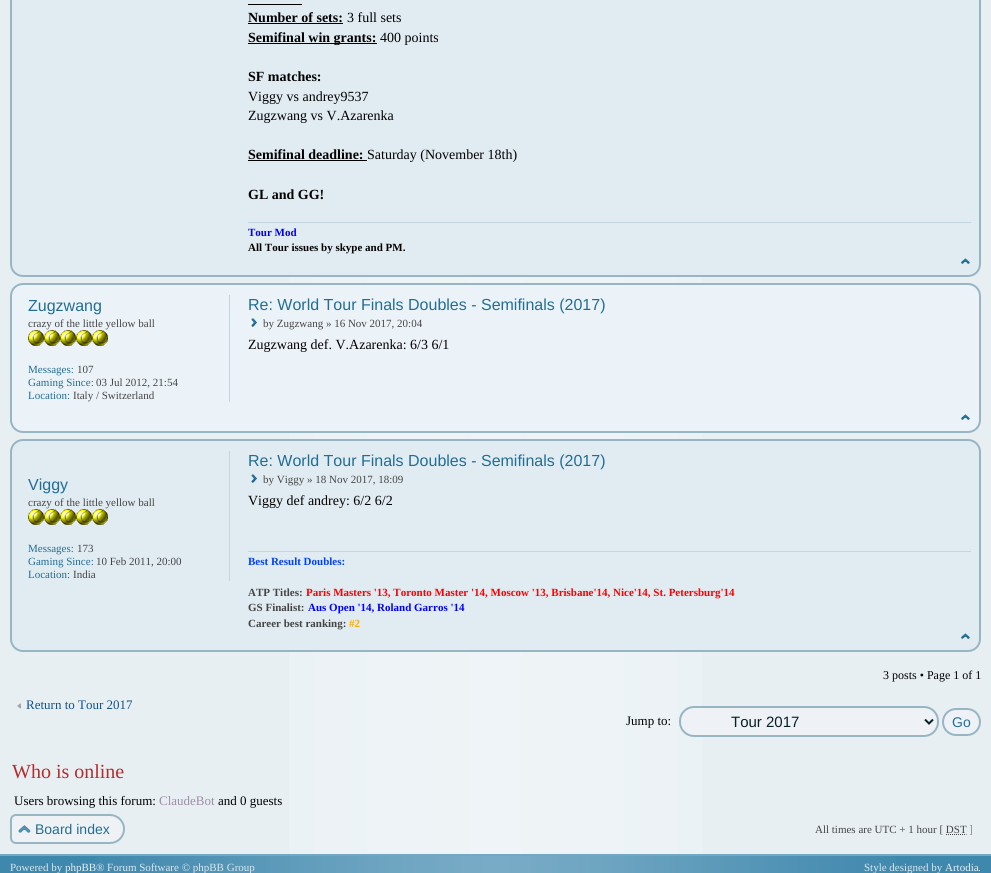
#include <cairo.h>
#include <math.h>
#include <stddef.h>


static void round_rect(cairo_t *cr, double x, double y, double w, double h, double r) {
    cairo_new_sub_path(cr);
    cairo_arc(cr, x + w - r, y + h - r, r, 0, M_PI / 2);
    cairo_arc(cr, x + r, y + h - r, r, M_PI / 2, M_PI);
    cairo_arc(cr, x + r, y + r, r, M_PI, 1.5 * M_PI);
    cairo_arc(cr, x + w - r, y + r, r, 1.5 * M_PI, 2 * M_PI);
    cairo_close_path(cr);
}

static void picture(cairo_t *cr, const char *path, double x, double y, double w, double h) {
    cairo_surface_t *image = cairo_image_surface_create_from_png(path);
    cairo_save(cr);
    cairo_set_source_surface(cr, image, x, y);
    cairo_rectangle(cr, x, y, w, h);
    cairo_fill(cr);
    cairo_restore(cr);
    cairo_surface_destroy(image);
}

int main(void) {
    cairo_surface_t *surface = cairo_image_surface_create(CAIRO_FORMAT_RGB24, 991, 873);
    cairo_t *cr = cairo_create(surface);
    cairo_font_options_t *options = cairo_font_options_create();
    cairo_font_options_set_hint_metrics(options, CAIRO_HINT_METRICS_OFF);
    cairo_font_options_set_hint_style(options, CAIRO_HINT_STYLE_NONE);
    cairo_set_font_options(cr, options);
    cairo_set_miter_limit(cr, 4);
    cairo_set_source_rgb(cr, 0.906, 0.937, 0.953);
    cairo_paint(cr);
    picture(cr, "img1.png", 289, 277, 413, 577);
    cairo_set_source_rgb(cr, 0.882, 0.922, 0.949);
    round_rect(cr, 11, -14, 969, 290, 12);
    cairo_fill_preserve(cr);
    cairo_set_source_rgb(cr, 0.596, 0.71, 0.765);
    cairo_stroke(cr);
    cairo_set_source_rgb(cr, 0, 0, 0);
    cairo_rectangle(cr, 248, 4, 54, 1);
    cairo_fill(cr);
    cairo_select_font_face(cr, "Liberation Serif", CAIRO_FONT_SLANT_NORMAL, CAIRO_FONT_WEIGHT_BOLD);
    cairo_set_font_size(cr, 14);
    cairo_move_to(cr, 248, 22);
    cairo_show_text(cr, "Number of sets:");
    cairo_rectangle(cr, 248, 23, 95, 1);
    cairo_fill(cr);
    cairo_select_font_face(cr, "Liberation Serif", CAIRO_FONT_SLANT_NORMAL, CAIRO_FONT_WEIGHT_NORMAL);
    cairo_move_to(cr, 347, 22);
    cairo_show_text(cr, "3 full sets");
    cairo_rectangle(cr, 248, 43, 129, 1);
    cairo_fill(cr);
    cairo_select_font_face(cr, "Liberation Serif", CAIRO_FONT_SLANT_NORMAL, CAIRO_FONT_WEIGHT_BOLD);
    cairo_move_to(cr, 248, 42);
    cairo_show_text(cr, "Semifinal win grants:");
    cairo_select_font_face(cr, "Liberation Serif", CAIRO_FONT_SLANT_NORMAL, CAIRO_FONT_WEIGHT_NORMAL);
    cairo_move_to(cr, 380, 42);
    cairo_show_text(cr, "400 points");
    cairo_select_font_face(cr, "Liberation Serif", CAIRO_FONT_SLANT_NORMAL, CAIRO_FONT_WEIGHT_BOLD);
    cairo_move_to(cr, 248, 81);
    cairo_show_text(cr, "SF matches:");
    cairo_select_font_face(cr, "Liberation Serif", CAIRO_FONT_SLANT_NORMAL, CAIRO_FONT_WEIGHT_NORMAL);
    cairo_move_to(cr, 248, 101);
    cairo_show_text(cr, "Viggy vs andrey9537");
    cairo_move_to(cr, 248, 120);
    cairo_show_text(cr, "Zugzwang vs V.Azarenka");
    cairo_select_font_face(cr, "Liberation Serif", CAIRO_FONT_SLANT_NORMAL, CAIRO_FONT_WEIGHT_BOLD);
    cairo_move_to(cr, 248, 159);
    cairo_show_text(cr, "Semifinal deadline:");
    cairo_rectangle(cr, 248, 160, 119, 1);
    cairo_fill(cr);
    cairo_select_font_face(cr, "Liberation Serif", CAIRO_FONT_SLANT_NORMAL, CAIRO_FONT_WEIGHT_NORMAL);
    cairo_move_to(cr, 367, 159);
    cairo_show_text(cr, "Saturday (November 18th)");
    cairo_select_font_face(cr, "Liberation Serif", CAIRO_FONT_SLANT_NORMAL, CAIRO_FONT_WEIGHT_BOLD);
    cairo_move_to(cr, 248, 199);
    cairo_show_text(cr, "GL and GG!");
    cairo_set_source_rgb(cr, 0.765, 0.839, 0.878);
    cairo_rectangle(cr, 248, 222, 723, 1);
    cairo_fill(cr);
    cairo_set_font_size(cr, 11);
    cairo_set_source_rgb(cr, 0, 0, 1);
    cairo_move_to(cr, 248, 236);
    cairo_show_text(cr, "Tour Mod");
    cairo_set_source_rgb(cr, 0, 0, 0);
    cairo_move_to(cr, 248, 251);
    cairo_show_text(cr, "All Tour issues by skype and PM.");
    picture(cr, "img2.png", 961, 258, 9, 6);
    cairo_set_source_rgb(cr, 0.925, 0.953, 0.969);
    round_rect(cr, 11, 284, 969, 148, 12);
    cairo_fill_preserve(cr);
    cairo_set_source_rgb(cr, 0.596, 0.71, 0.765);
    cairo_stroke(cr);
    cairo_set_source_rgb(cr, 0.765, 0.839, 0.878);
    cairo_rectangle(cr, 229, 295, 1, 107);
    cairo_fill(cr);
    cairo_select_font_face(cr, "Liberation Sans", CAIRO_FONT_SLANT_NORMAL, CAIRO_FONT_WEIGHT_NORMAL);
    cairo_set_font_size(cr, 16);
    cairo_set_source_rgb(cr, 0.129, 0.427, 0.58);
    cairo_move_to(cr, 28, 311);
    cairo_show_text(cr, "Zugzwang");
    cairo_select_font_face(cr, "Liberation Serif", CAIRO_FONT_SLANT_NORMAL, CAIRO_FONT_WEIGHT_NORMAL);
    cairo_set_font_size(cr, 11);
    cairo_set_source_rgb(cr, 0.267, 0.267, 0.267);
    cairo_move_to(cr, 28, 327);
    cairo_show_text(cr, "crazy of the little yellow ball");
    picture(cr, "img3.png", 28, 330, 80, 16);
    cairo_set_source_rgb(cr, 0.129, 0.427, 0.58);
    cairo_move_to(cr, 28, 373);
    cairo_show_text(cr, "Messages:");
    cairo_set_source_rgb(cr, 0.267, 0.267, 0.267);
    cairo_move_to(cr, 77, 373);
    cairo_show_text(cr, "107");
    cairo_set_source_rgb(cr, 0.129, 0.427, 0.58);
    cairo_move_to(cr, 28, 386);
    cairo_show_text(cr, "Gaming Since:");
    cairo_set_source_rgb(cr, 0.267, 0.267, 0.267);
    cairo_move_to(cr, 96, 386);
    cairo_show_text(cr, "03 Jul 2012, 21:54");
    cairo_set_source_rgb(cr, 0.129, 0.427, 0.58);
    cairo_move_to(cr, 28, 399);
    cairo_show_text(cr, "Location:");
    cairo_set_source_rgb(cr, 0.267, 0.267, 0.267);
    cairo_move_to(cr, 73, 399);
    cairo_show_text(cr, "Italy / Switzerland");
    cairo_select_font_face(cr, "Liberation Sans", CAIRO_FONT_SLANT_NORMAL, CAIRO_FONT_WEIGHT_NORMAL);
    cairo_set_font_size(cr, 16);
    cairo_set_source_rgb(cr, 0.129, 0.427, 0.58);
    cairo_move_to(cr, 248, 310);
    cairo_show_text(cr, "Re: World Tour Finals Doubles - Semifinals (2017)");
    picture(cr, "img4.png", 251, 318, 6, 9);
    cairo_select_font_face(cr, "Liberation Serif", CAIRO_FONT_SLANT_NORMAL, CAIRO_FONT_WEIGHT_NORMAL);
    cairo_set_font_size(cr, 11);
    cairo_set_source_rgb(cr, 0.267, 0.267, 0.267);
    cairo_move_to(cr, 263, 327);
    cairo_show_text(cr, "by Zugzwang » 16 Nov 2017, 20:04");
    cairo_set_font_size(cr, 14);
    cairo_set_source_rgb(cr, 0, 0, 0);
    cairo_move_to(cr, 248, 349);
    cairo_show_text(cr, "Zugzwang def. V.Azarenka: 6/3 6/1");
    picture(cr, "img5.png", 961, 414, 9, 6);
    cairo_set_source_rgb(cr, 0.882, 0.922, 0.949);
    round_rect(cr, 11, 440, 969, 211, 12);
    cairo_fill_preserve(cr);
    cairo_set_source_rgb(cr, 0.596, 0.71, 0.765);
    cairo_stroke(cr);
    cairo_set_source_rgb(cr, 0.765, 0.839, 0.878);
    cairo_rectangle(cr, 229, 451, 1, 130);
    cairo_fill(cr);
    cairo_select_font_face(cr, "Liberation Sans", CAIRO_FONT_SLANT_NORMAL, CAIRO_FONT_WEIGHT_NORMAL);
    cairo_set_font_size(cr, 16);
    cairo_set_source_rgb(cr, 0.129, 0.427, 0.58);
    cairo_move_to(cr, 28, 490);
    cairo_show_text(cr, "Viggy");
    cairo_select_font_face(cr, "Liberation Serif", CAIRO_FONT_SLANT_NORMAL, CAIRO_FONT_WEIGHT_NORMAL);
    cairo_set_font_size(cr, 11);
    cairo_set_source_rgb(cr, 0.267, 0.267, 0.267);
    cairo_move_to(cr, 28, 506);
    cairo_show_text(cr, "crazy of the little yellow ball");
    picture(cr, "img6.png", 28, 509, 80, 16);
    cairo_set_source_rgb(cr, 0.129, 0.427, 0.58);
    cairo_move_to(cr, 28, 552);
    cairo_show_text(cr, "Messages:");
    cairo_set_source_rgb(cr, 0.267, 0.267, 0.267);
    cairo_move_to(cr, 77, 552);
    cairo_show_text(cr, "173");
    cairo_set_source_rgb(cr, 0.129, 0.427, 0.58);
    cairo_move_to(cr, 28, 565);
    cairo_show_text(cr, "Gaming Since:");
    cairo_set_source_rgb(cr, 0.267, 0.267, 0.267);
    cairo_move_to(cr, 96, 565);
    cairo_show_text(cr, "10 Feb 2011, 20:00");
    cairo_set_source_rgb(cr, 0.129, 0.427, 0.58);
    cairo_move_to(cr, 28, 578);
    cairo_show_text(cr, "Location:");
    cairo_set_source_rgb(cr, 0.267, 0.267, 0.267);
    cairo_move_to(cr, 73, 578);
    cairo_show_text(cr, "India");
    cairo_select_font_face(cr, "Liberation Sans", CAIRO_FONT_SLANT_NORMAL, CAIRO_FONT_WEIGHT_NORMAL);
    cairo_set_font_size(cr, 16);
    cairo_set_source_rgb(cr, 0.129, 0.427, 0.58);
    cairo_move_to(cr, 248, 466);
    cairo_show_text(cr, "Re: World Tour Finals Doubles - Semifinals (2017)");
    picture(cr, "img7.png", 251, 474, 6, 9);
    cairo_select_font_face(cr, "Liberation Serif", CAIRO_FONT_SLANT_NORMAL, CAIRO_FONT_WEIGHT_NORMAL);
    cairo_set_font_size(cr, 11);
    cairo_set_source_rgb(cr, 0.267, 0.267, 0.267);
    cairo_move_to(cr, 263, 483);
    cairo_show_text(cr, "by Viggy » 18 Nov 2017, 18:09");
    cairo_set_font_size(cr, 14);
    cairo_set_source_rgb(cr, 0, 0, 0);
    cairo_move_to(cr, 248, 505);
    cairo_show_text(cr, "Viggy def andrey: 6/2 6/2");
    cairo_set_source_rgb(cr, 0.765, 0.839, 0.878);
    cairo_rectangle(cr, 248, 551, 723, 1);
    cairo_fill(cr);
    cairo_select_font_face(cr, "Liberation Serif", CAIRO_FONT_SLANT_NORMAL, CAIRO_FONT_WEIGHT_BOLD);
    cairo_set_font_size(cr, 11);
    cairo_set_source_rgb(cr, 0, 0.251, 1);
    cairo_move_to(cr, 248, 565);
    cairo_show_text(cr, "Best Result Doubles:");
    cairo_set_source_rgb(cr, 0.267, 0.267, 0.267);
    cairo_move_to(cr, 248, 596);
    cairo_show_text(cr, "ATP Titles:");
    cairo_set_source_rgb(cr, 1, 0, 0);
    cairo_move_to(cr, 306, 596);
    cairo_show_text(cr, "Paris Masters '13, Toronto Master '14, Moscow '13, Brisbane'14, Nice'14, St. Petersburg'14");
    cairo_set_source_rgb(cr, 0.267, 0.267, 0.267);
    cairo_move_to(cr, 248, 611);
    cairo_show_text(cr, "GS Finalist:");
    cairo_set_source_rgb(cr, 0, 0, 1);
    cairo_move_to(cr, 308, 611);
    cairo_show_text(cr, "Aus Open '14, Roland Garros '14");
    cairo_set_source_rgb(cr, 0.267, 0.267, 0.267);
    cairo_move_to(cr, 248, 627);
    cairo_show_text(cr, "Career best ranking:");
    cairo_set_source_rgb(cr, 1, 0.667, 0);
    cairo_move_to(cr, 349, 627);
    cairo_show_text(cr, "#2");
    picture(cr, "img2.png", 961, 633, 9, 6);
    cairo_select_font_face(cr, "Liberation Serif", CAIRO_FONT_SLANT_NORMAL, CAIRO_FONT_WEIGHT_NORMAL);
    cairo_set_font_size(cr, 12);
    cairo_set_source_rgb(cr, 0, 0, 0);
    cairo_move_to(cr, 883, 679);
    cairo_show_text(cr, "3 posts • Page 1 of 1");
    picture(cr, "img8.png", 17, 703, 4, 6);
    cairo_set_font_size(cr, 13);
    cairo_set_source_rgb(cr, 0.063, 0.322, 0.537);
    cairo_move_to(cr, 26, 709);
    cairo_show_text(cr, "Return to Tour 2017");
    cairo_set_source_rgb(cr, 0, 0, 0);
    cairo_move_to(cr, 626, 725);
    cairo_show_text(cr, "Jump to:");
    cairo_set_source_rgb(cr, 0.933, 0.949, 0.961);
    round_rect(cr, 680, 707, 258, 29, 14);
    cairo_fill_preserve(cr);
    cairo_set_source_rgb(cr, 0.596, 0.71, 0.765);
    cairo_stroke(cr);
    cairo_new_path(cr);
    cairo_move_to(cr, 925, 719.5);
    cairo_line_to(cr, 929, 723.5);
    cairo_line_to(cr, 933, 719.5);
    cairo_set_source_rgb(cr, 0.031, 0.125, 0.141);
    cairo_stroke(cr);
    cairo_select_font_face(cr, "Liberation Sans", CAIRO_FONT_SLANT_NORMAL, CAIRO_FONT_WEIGHT_NORMAL);
    cairo_set_font_size(cr, 15);
    cairo_move_to(cr, 731, 727);
    cairo_show_text(cr, "Tour 2017");
    cairo_set_source_rgb(cr, 0.933, 0.949, 0.961);
    round_rect(cr, 943, 709, 37, 26, 13);
    cairo_fill_preserve(cr);
    cairo_set_source_rgb(cr, 0.596, 0.71, 0.765);
    cairo_stroke(cr);
    cairo_set_font_size(cr, 14);
    cairo_set_source_rgb(cr, 0.129, 0.427, 0.58);
    cairo_move_to(cr, 952, 727);
    cairo_show_text(cr, "Go");
    cairo_select_font_face(cr, "Liberation Serif", CAIRO_FONT_SLANT_NORMAL, CAIRO_FONT_WEIGHT_NORMAL);
    cairo_set_font_size(cr, 20);
    cairo_set_source_rgb(cr, 0.706, 0.173, 0.173);
    cairo_move_to(cr, 12, 778);
    cairo_show_text(cr, "Who is online");
    cairo_set_font_size(cr, 13);
    cairo_set_source_rgb(cr, 0, 0, 0);
    cairo_move_to(cr, 14, 805);
    cairo_show_text(cr, "Users browsing this forum:");
    cairo_set_source_rgb(cr, 0.62, 0.553, 0.655);
    cairo_move_to(cr, 159, 805);
    cairo_show_text(cr, "ClaudeBot");
    cairo_set_source_rgb(cr, 0, 0, 0);
    cairo_move_to(cr, 218, 805);
    cairo_show_text(cr, "and 0 guests");
    picture(cr, "img9.png", 31, 814, 94, 30);
    picture(cr, "img10.png", 10, 814, 21, 30);
    cairo_select_font_face(cr, "Liberation Sans", CAIRO_FONT_SLANT_NORMAL, CAIRO_FONT_WEIGHT_NORMAL);
    cairo_set_font_size(cr, 14);
    cairo_set_source_rgb(cr, 0.129, 0.427, 0.58);
    cairo_move_to(cr, 35, 834);
    cairo_show_text(cr, "Board index");
    cairo_select_font_face(cr, "Liberation Serif", CAIRO_FONT_SLANT_NORMAL, CAIRO_FONT_WEIGHT_NORMAL);
    cairo_set_font_size(cr, 11);
    cairo_set_source_rgb(cr, 0.267, 0.267, 0.267);
    cairo_move_to(cr, 815, 833);
    cairo_show_text(cr, "All times are UTC + 1 hour [ DST ]");
    cairo_new_path(cr);
    cairo_move_to(cr, 946, 834.5);
    cairo_line_to(cr, 966.5, 834.5);
    cairo_set_line_width(cr, 1);
    cairo_set_dash(cr, (double[]){1, 1}, 2, 0);
    cairo_stroke(cr);
    cairo_set_source_rgb(cr, 0.243, 0.529, 0.678);
    cairo_rectangle(cr, 0, 856, 991, 17);
    cairo_fill(cr);
    picture(cr, "img11.png", 95, 856, 801, 17);
    cairo_set_source_rgb(cr, 0.451, 0.659, 0.769);
    cairo_rectangle(cr, 0, 854, 991, 2);
    cairo_fill(cr);
    cairo_set_source_rgb(cr, 0.851, 0.91, 0.937);
    cairo_move_to(cr, 10, 871);
    cairo_show_text(cr, "Powered by");
    cairo_set_source_rgb(cr, 0.914, 0.945, 0.961);
    cairo_move_to(cr, 65, 871);
    cairo_show_text(cr, "phpBB");
    cairo_set_source_rgb(cr, 0.851, 0.91, 0.937);
    cairo_move_to(cr, 96, 871);
    cairo_show_text(cr, "® Forum Software © phpBB Group");
    cairo_move_to(cr, 864, 871);
    cairo_show_text(cr, "Style designed by");
    cairo_set_source_rgb(cr, 0.914, 0.945, 0.961);
    cairo_move_to(cr, 945, 871);
    cairo_show_text(cr, "Artodia");
    cairo_set_source_rgb(cr, 0.851, 0.91, 0.937);
    cairo_move_to(cr, 978, 871);
    cairo_show_text(cr, ".");
    cairo_surface_write_to_png(surface, "page.png");
    cairo_font_options_destroy(options);
    cairo_destroy(cr);
    cairo_surface_destroy(surface);
    return 0;
}
